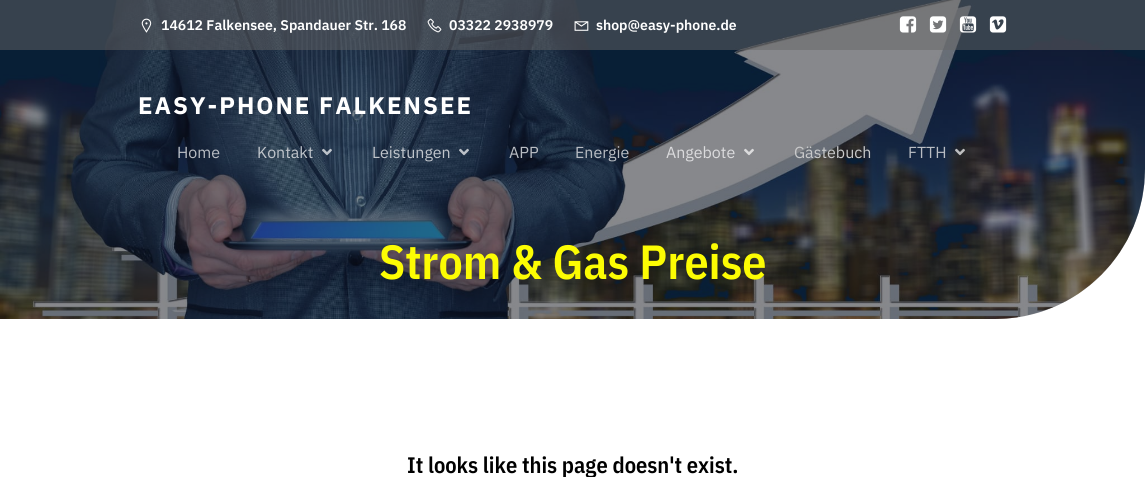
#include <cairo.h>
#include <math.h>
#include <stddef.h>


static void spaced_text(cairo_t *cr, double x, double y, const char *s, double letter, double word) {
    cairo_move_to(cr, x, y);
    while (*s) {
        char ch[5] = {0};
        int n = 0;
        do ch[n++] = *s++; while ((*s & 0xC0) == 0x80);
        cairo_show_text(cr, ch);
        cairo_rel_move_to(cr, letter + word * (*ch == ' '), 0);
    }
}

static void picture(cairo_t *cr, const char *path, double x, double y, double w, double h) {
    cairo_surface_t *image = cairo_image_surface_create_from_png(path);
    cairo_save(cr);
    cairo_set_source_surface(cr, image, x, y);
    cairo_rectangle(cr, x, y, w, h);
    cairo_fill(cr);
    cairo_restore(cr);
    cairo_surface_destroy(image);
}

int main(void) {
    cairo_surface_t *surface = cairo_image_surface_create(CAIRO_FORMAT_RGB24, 1145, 477);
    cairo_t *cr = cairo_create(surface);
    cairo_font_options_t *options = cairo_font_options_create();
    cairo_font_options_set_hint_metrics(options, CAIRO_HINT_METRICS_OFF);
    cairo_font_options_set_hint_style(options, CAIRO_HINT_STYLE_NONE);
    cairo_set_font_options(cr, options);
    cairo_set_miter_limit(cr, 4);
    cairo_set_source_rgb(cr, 1, 1, 1);
    cairo_paint(cr);
    picture(cr, "img12.png", 0, 0, 1145, 319);
    cairo_set_source_rgba(cr, 0.067, 0.071, 0.102, 0.5);
    cairo_new_path(cr);
    cairo_move_to(cr, 0, 0);
    cairo_line_to(cr, 1145, 0);
    cairo_line_to(cr, 1145, 169);
    cairo_curve_to(cr, 1145, 252, 1078, 319, 995, 319);
    cairo_line_to(cr, 0, 319);
    cairo_close_path(cr);
    cairo_fill(cr);
    cairo_set_source_rgba(cr, 0.4, 0.4, 0.4, 0.5);
    cairo_rectangle(cr, 0, 0, 1145, 50);
    cairo_fill(cr);
    picture(cr, "img1.png", 141, 18, 11, 15);
    cairo_select_font_face(cr, "IBM Plex Sans SemiBold", CAIRO_FONT_SLANT_NORMAL, CAIRO_FONT_WEIGHT_NORMAL);
    cairo_set_font_size(cr, 14);
    cairo_set_source_rgb(cr, 1, 1, 1);
    cairo_move_to(cr, 161, 30);
    cairo_show_text(cr, "14612 Falkensee, Spandauer Str. 168");
    picture(cr, "img2.png", 427, 18, 15, 15);
    cairo_move_to(cr, 449, 30);
    cairo_show_text(cr, "03322 2938979");
    picture(cr, "img3.png", 574, 21, 15, 10);
    cairo_move_to(cr, 596, 30);
    cairo_show_text(cr, "shop@easy-phone.de");
    picture(cr, "img4.png", 899, 16, 18, 17);
    picture(cr, "img5.png", 929, 16, 18, 17);
    picture(cr, "img6.png", 959, 16, 18, 17);
    picture(cr, "img7.png", 989, 16, 18, 17);
    cairo_select_font_face(cr, "IBM Plex Sans", CAIRO_FONT_SLANT_NORMAL, CAIRO_FONT_WEIGHT_BOLD);
    cairo_set_font_size(cr, 24);
    spaced_text(cr, 138, 114, "EASY-PHONE FALKENSEE", 2, 0);
    cairo_select_font_face(cr, "IBM Plex Sans", CAIRO_FONT_SLANT_NORMAL, CAIRO_FONT_WEIGHT_NORMAL);
    cairo_set_font_size(cr, 16);
    cairo_set_source_rgb(cr, 0.725, 0.741, 0.765);
    cairo_move_to(cr, 177, 158);
    cairo_show_text(cr, "Home");
    cairo_set_source_rgb(cr, 0.753, 0.773, 0.796);
    cairo_move_to(cr, 257, 158);
    cairo_show_text(cr, "Kontakt");
    picture(cr, "img8.png", 322, 148, 10, 8);
    cairo_move_to(cr, 372, 158);
    cairo_show_text(cr, "Leistungen");
    picture(cr, "img9.png", 459, 148, 10, 8);
    cairo_set_source_rgb(cr, 0.725, 0.741, 0.765);
    cairo_move_to(cr, 509, 158);
    cairo_show_text(cr, "APP");
    cairo_move_to(cr, 575, 158);
    cairo_show_text(cr, "Energie");
    cairo_set_source_rgb(cr, 0.859, 0.859, 0.867);
    cairo_move_to(cr, 666, 158);
    cairo_show_text(cr, "Angebote");
    picture(cr, "img10.png", 744, 148, 10, 8);
    cairo_set_source_rgb(cr, 0.784, 0.788, 0.792);
    cairo_move_to(cr, 794, 158);
    cairo_show_text(cr, "Gästebuch");
    cairo_set_source_rgb(cr, 0.725, 0.741, 0.765);
    cairo_move_to(cr, 908, 158);
    cairo_show_text(cr, "FTTH");
    picture(cr, "img11.png", 955, 148, 10, 8);
    cairo_select_font_face(cr, "IBM Plex Sans Condensed SemiBold", CAIRO_FONT_SLANT_NORMAL, CAIRO_FONT_WEIGHT_NORMAL);
    cairo_set_font_size(cr, 48);
    cairo_set_source_rgb(cr, 0.988, 0.988, 0.012);
    cairo_move_to(cr, 379, 279);
    cairo_show_text(cr, "Strom & Gas Preise");
    cairo_set_font_size(cr, 22.4);
    cairo_set_source_rgb(cr, 0, 0, 0);
    cairo_move_to(cr, 407, 473);
    cairo_show_text(cr, "It looks like this page doesn't exist.");
    cairo_surface_write_to_png(surface, "page.png");
    cairo_font_options_destroy(options);
    cairo_destroy(cr);
    cairo_surface_destroy(surface);
    return 0;
}
